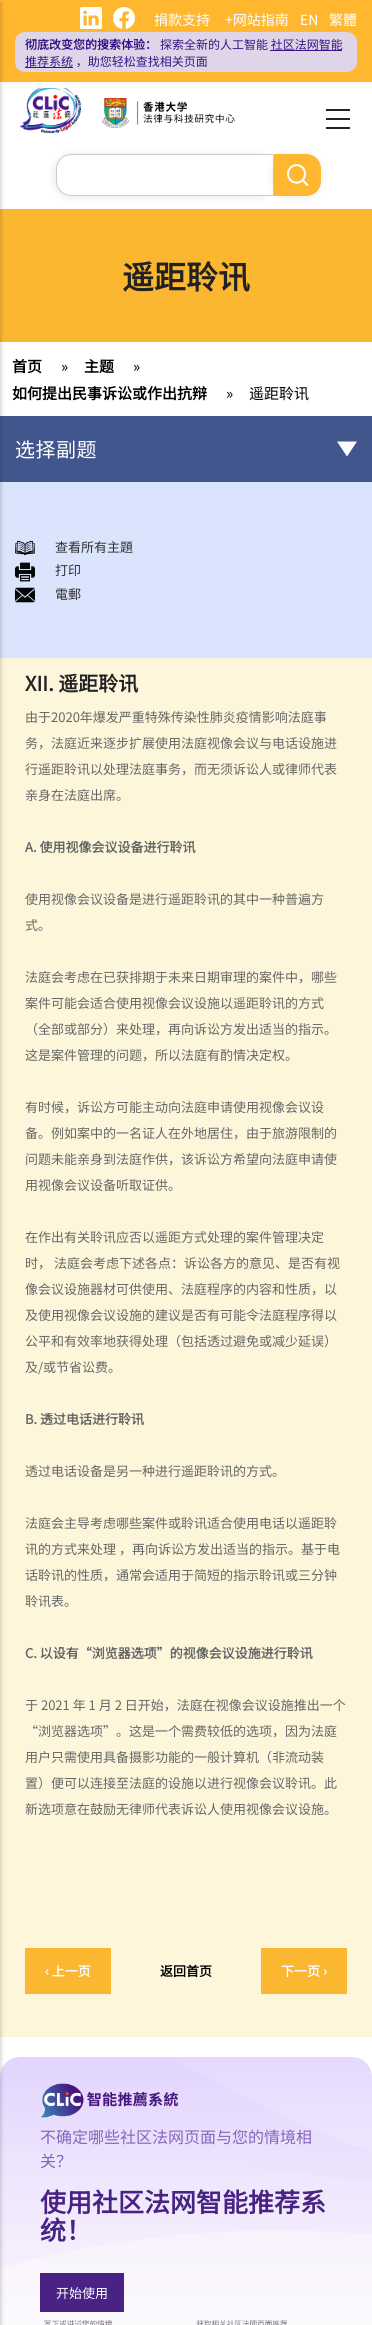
#include <cairo.h>
#include <math.h>
#include <stddef.h>


static void spaced_text(cairo_t *cr, double x, double y, const char *s, double letter, double word) {
    cairo_move_to(cr, x, y);
    while (*s) {
        char ch[5] = {0};
        int n = 0;
        do ch[n++] = *s++; while ((*s & 0xC0) == 0x80);
        cairo_show_text(cr, ch);
        cairo_rel_move_to(cr, letter + word * (*ch == ' '), 0);
    }
}

static void round_rect(cairo_t *cr, double x, double y, double w, double h, double r) {
    cairo_new_sub_path(cr);
    cairo_arc(cr, x + w - r, y + h - r, r, 0, M_PI / 2);
    cairo_arc(cr, x + r, y + h - r, r, M_PI / 2, M_PI);
    cairo_arc(cr, x + r, y + r, r, M_PI, 1.5 * M_PI);
    cairo_arc(cr, x + w - r, y + r, r, 1.5 * M_PI, 2 * M_PI);
    cairo_close_path(cr);
}

static void shadow(cairo_t *cr, double x, double y, double w, double h, double r, double blur, double alpha) {
    cairo_push_group_with_content(cr, CAIRO_CONTENT_ALPHA);
    cairo_set_operator(cr, CAIRO_OPERATOR_SOURCE);
    for (int i = 15; i >= -15 && fmin(w, h) + blur * i / 3 > 0; i -= 2) {
        double e = blur * i / 6;
        cairo_set_source_rgba(cr, 0, 0, 0, alpha * erfc((i - 1) / 8.5) / 2);
        round_rect(cr, x - e, y - e, w + 2 * e, h + 2 * e, fmax(0, fmin(r + e + blur * .6, fmin(w, h) / 2 + e)));
        cairo_fill(cr);
    }
    cairo_pattern_t *soft = cairo_pop_group(cr);
    cairo_mask(cr, soft);
    cairo_pattern_destroy(soft);
}

static void picture(cairo_t *cr, const char *path, double x, double y, double w, double h) {
    cairo_surface_t *image = cairo_image_surface_create_from_png(path);
    cairo_save(cr);
    cairo_set_source_surface(cr, image, x, y);
    cairo_rectangle(cr, x, y, w, h);
    cairo_fill(cr);
    cairo_restore(cr);
    cairo_surface_destroy(image);
}

int main(void) {
    cairo_surface_t *surface = cairo_image_surface_create(CAIRO_FORMAT_RGB24, 372, 2325);
    cairo_t *cr = cairo_create(surface);
    cairo_font_options_t *options = cairo_font_options_create();
    cairo_font_options_set_hint_metrics(options, CAIRO_HINT_METRICS_OFF);
    cairo_font_options_set_hint_style(options, CAIRO_HINT_STYLE_NONE);
    cairo_set_font_options(cr, options);
    cairo_set_miter_limit(cr, 4);
    cairo_set_source_rgb(cr, 1, 1, 1);
    cairo_paint(cr);
    cairo_set_source_rgb(cr, 1, 0.718, 0.188);
    cairo_rectangle(cr, 0, 0, 372, 82);
    cairo_fill(cr);
    cairo_set_source_rgb(cr, 0, 0, 0);
    shadow(cr, 55, 155, 218, 42, 15, 4, 0.1);
    cairo_set_source_rgb(cr, 1, 1, 1);
    cairo_new_path(cr);
    cairo_move_to(cr, 71, 154.5);
    cairo_line_to(cr, 273.5, 154.5);
    cairo_line_to(cr, 273.5, 195.5);
    cairo_line_to(cr, 71, 195.5);
    cairo_curve_to(cr, 63, 195.5, 56.5, 189, 56.5, 181);
    cairo_line_to(cr, 56.5, 169);
    cairo_curve_to(cr, 56.5, 161, 63, 154.5, 71, 154.5);
    cairo_close_path(cr);
    cairo_fill_preserve(cr);
    cairo_set_source_rgb(cr, 0.8, 0.8, 0.8);
    cairo_set_line_width(cr, 1);
    cairo_stroke(cr);
    cairo_set_source_rgb(cr, 0, 0, 0);
    shadow(cr, 273, 155, 47, 42, 15, 4, 0.1);
    cairo_set_source_rgb(cr, 0.988, 0.718, 0.188);
    cairo_rectangle(cr, 0, 209, 372, 133);
    cairo_fill(cr);
    cairo_set_source_rgb(cr, 0.859, 0.894, 0.992);
    cairo_rectangle(cr, 0, 482, 372, 176);
    cairo_fill(cr);
    cairo_set_source_rgb(cr, 0.259, 0.337, 0.557);
    cairo_rectangle(cr, 0, 416, 372, 66);
    cairo_fill(cr);
    cairo_set_source_rgb(cr, 0.992, 0.961, 0.859);
    cairo_rectangle(cr, 0, 658, 372, 1379);
    cairo_fill(cr);
    picture(cr, "img9.png", 0, 2057, 372, 268);
    cairo_set_source_rgb(cr, 0, 0, 0);
    shadow(cr, -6, 3, 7, 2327, 0, 2, 0.2);
    cairo_set_source_rgb(cr, 0.133, 0.133, 0.133);
    cairo_rectangle(cr, 326, 109, 24, 2);
    cairo_fill(cr);
    cairo_rectangle(cr, 326, 118, 24, 2);
    cairo_fill(cr);
    cairo_rectangle(cr, 326, 127, 24, 2);
    cairo_fill(cr);
    picture(cr, "img1.png", 20, 88, 61, 45);
    picture(cr, "img2.png", 102, 98, 133, 30);
    cairo_set_source_rgb(cr, 1, 0.718, 0.188);
    cairo_new_path(cr);
    cairo_move_to(cr, 274, 154);
    cairo_line_to(cr, 306, 154);
    cairo_curve_to(cr, 314.5, 154, 321, 160.5, 321, 169);
    cairo_line_to(cr, 321, 181);
    cairo_curve_to(cr, 321, 189.5, 314.5, 196, 306, 196);
    cairo_line_to(cr, 274, 196);
    cairo_close_path(cr);
    cairo_fill(cr);
    picture(cr, "img3.png", 287, 164, 22, 22);
    picture(cr, "img4.png", 80, 7, 22, 22);
    picture(cr, "img5.png", 113, 7, 22, 22);
    cairo_select_font_face(cr, "Noto Sans SC Thin", CAIRO_FONT_SLANT_NORMAL, CAIRO_FONT_WEIGHT_NORMAL);
    cairo_set_font_size(cr, 14);
    cairo_set_source_rgb(cr, 1, 1, 1);
    cairo_move_to(cr, 154, 25);
    cairo_show_text(cr, "捐款支持");
    cairo_move_to(cr, 225, 25);
    cairo_show_text(cr, "+网站指南");
    cairo_move_to(cr, 300, 25);
    cairo_show_text(cr, "EN");
    cairo_move_to(cr, 329, 25);
    cairo_show_text(cr, "繁體");
    cairo_set_source_rgb(cr, 0.871, 0.839, 0.91);
    round_rect(cr, 15, 32, 342, 40, 10);
    cairo_fill(cr);
    cairo_select_font_face(cr, "Noto Sans SC", CAIRO_FONT_SLANT_NORMAL, CAIRO_FONT_WEIGHT_BOLD);
    cairo_set_font_size(cr, 12);
    cairo_set_source_rgb(cr, 0.224, 0.075, 0.522);
    cairo_move_to(cr, 25, 49);
    cairo_show_text(cr, "彻底改变您的搜索体验：");
    cairo_select_font_face(cr, "Noto Sans SC Thin", CAIRO_FONT_SLANT_NORMAL, CAIRO_FONT_WEIGHT_NORMAL);
    cairo_move_to(cr, 160, 49);
    cairo_show_text(cr, "探索全新的人工智能 社区法网智能");
    cairo_rectangle(cr, 270, 50, 72, 1);
    cairo_fill(cr);
    cairo_rectangle(cr, 25, 67, 48, 1);
    cairo_fill(cr);
    cairo_move_to(cr, 25, 66);
    cairo_show_text(cr, "推荐系统 ，助您轻松查找相关页面");
    cairo_select_font_face(cr, "Noto Sans SC", CAIRO_FONT_SLANT_NORMAL, CAIRO_FONT_WEIGHT_BOLD);
    cairo_set_font_size(cr, 32);
    cairo_set_source_rgb(cr, 0.133, 0.133, 0.133);
    cairo_move_to(cr, 122, 289);
    cairo_show_text(cr, "遥距聆讯");
    cairo_set_font_size(cr, 15);
    cairo_set_source_rgb(cr, 0, 0, 0);
    cairo_move_to(cr, 12, 372);
    cairo_show_text(cr, "首页");
    cairo_select_font_face(cr, "Noto Sans SC Thin", CAIRO_FONT_SLANT_NORMAL, CAIRO_FONT_WEIGHT_NORMAL);
    cairo_move_to(cr, 61, 372);
    cairo_show_text(cr, "»");
    cairo_select_font_face(cr, "Noto Sans SC", CAIRO_FONT_SLANT_NORMAL, CAIRO_FONT_WEIGHT_BOLD);
    cairo_move_to(cr, 84, 372);
    cairo_show_text(cr, "主题");
    cairo_select_font_face(cr, "Noto Sans SC Thin", CAIRO_FONT_SLANT_NORMAL, CAIRO_FONT_WEIGHT_NORMAL);
    cairo_move_to(cr, 133, 372);
    cairo_show_text(cr, "»");
    cairo_select_font_face(cr, "Noto Sans SC", CAIRO_FONT_SLANT_NORMAL, CAIRO_FONT_WEIGHT_BOLD);
    cairo_move_to(cr, 12, 399);
    cairo_show_text(cr, "如何提出民事诉讼或作出抗辩");
    cairo_select_font_face(cr, "Noto Sans SC Thin", CAIRO_FONT_SLANT_NORMAL, CAIRO_FONT_WEIGHT_NORMAL);
    cairo_move_to(cr, 226, 399);
    cairo_show_text(cr, "»");
    cairo_move_to(cr, 249, 399);
    cairo_show_text(cr, "遥距聆讯");
    cairo_set_font_size(cr, 20);
    cairo_set_source_rgb(cr, 1, 1, 1);
    spaced_text(cr, 15, 457, "选择副题", 0.5, 0);
    cairo_new_path(cr);
    cairo_move_to(cr, 337, 441.5);
    cairo_line_to(cr, 357, 441.5);
    cairo_line_to(cr, 347, 456.5);
    cairo_close_path(cr);
    cairo_fill(cr);
    picture(cr, "img6.png", 15, 540, 20, 16);
    cairo_set_font_size(cr, 13);
    cairo_set_source_rgb(cr, 0.188, 0.188, 0.188);
    cairo_move_to(cr, 55, 552);
    cairo_show_text(cr, "查看所有主題");
    picture(cr, "img7.png", 15, 562, 20, 20);
    cairo_move_to(cr, 55, 575);
    cairo_show_text(cr, "打印");
    picture(cr, "img8.png", 15, 587, 20, 16);
    cairo_move_to(cr, 55, 599);
    cairo_show_text(cr, "電郵");
    cairo_select_font_face(cr, "Noto Sans SC", CAIRO_FONT_SLANT_NORMAL, CAIRO_FONT_WEIGHT_BOLD);
    cairo_set_font_size(cr, 20);
    cairo_set_source_rgb(cr, 0.133, 0.133, 0.133);
    cairo_move_to(cr, 25, 691);
    cairo_show_text(cr, "XII. 遥距聆讯");
    cairo_select_font_face(cr, "Noto Sans SC Thin", CAIRO_FONT_SLANT_NORMAL, CAIRO_FONT_WEIGHT_NORMAL);
    cairo_set_font_size(cr, 13);
    cairo_set_source_rgb(cr, 0.4, 0.4, 0.4);
    cairo_move_to(cr, 25, 722);
    cairo_show_text(cr, "由于2020年爆发严重特殊传染性肺炎疫情影响法庭事");
    cairo_move_to(cr, 25, 748);
    cairo_show_text(cr, "务，法庭近来逐步扩展使用法庭视像会议与电话设施进");
    cairo_move_to(cr, 25, 774);
    cairo_show_text(cr, "行遥距聆讯以处理法庭事务，而无须诉讼人或律师代表");
    cairo_move_to(cr, 25, 800);
    cairo_show_text(cr, "亲身在法庭出席。");
    cairo_select_font_face(cr, "Noto Sans SC", CAIRO_FONT_SLANT_NORMAL, CAIRO_FONT_WEIGHT_BOLD);
    cairo_move_to(cr, 25, 852);
    cairo_show_text(cr, "A. 使用视像会议设备进行聆讯");
    cairo_select_font_face(cr, "Noto Sans SC Thin", CAIRO_FONT_SLANT_NORMAL, CAIRO_FONT_WEIGHT_NORMAL);
    cairo_move_to(cr, 25, 904);
    cairo_show_text(cr, "使用视像会议设备是进行遥距聆讯的其中一种普遍方");
    cairo_move_to(cr, 25, 930);
    cairo_show_text(cr, "式。");
    cairo_move_to(cr, 25, 982);
    cairo_show_text(cr, "法庭会考虑在已获排期于未来日期审理的案件中，哪些");
    cairo_move_to(cr, 25, 1008);
    cairo_show_text(cr, "案件可能会适合使用视像会议设施以遥距聆讯的方式");
    cairo_move_to(cr, 25, 1034);
    cairo_show_text(cr, "（全部或部分）来处理，再向诉讼方发出适当的指示。");
    cairo_move_to(cr, 25, 1060);
    cairo_show_text(cr, "这是案件管理的问题，所以法庭有酌情决定权。");
    cairo_move_to(cr, 25, 1112);
    cairo_show_text(cr, "有时候，诉讼方可能主动向法庭申请使用视像会议设");
    cairo_move_to(cr, 25, 1138);
    cairo_show_text(cr, "备。例如案中的一名证人在外地居住，由于旅游限制的");
    cairo_move_to(cr, 25, 1164);
    cairo_show_text(cr, "问题未能亲身到法庭作供，该诉讼方希望向法庭申请使");
    cairo_move_to(cr, 25, 1190);
    cairo_show_text(cr, "用视像会议设备听取证供。");
    cairo_move_to(cr, 25, 1242);
    cairo_show_text(cr, "在作出有关聆讯应否以遥距方式处理的案件管理决定");
    cairo_move_to(cr, 25, 1268);
    cairo_show_text(cr, "时， 法庭会考虑下述各点：诉讼各方的意见、是否有视");
    cairo_move_to(cr, 25, 1294);
    cairo_show_text(cr, "像会议设施器材可供使用、法庭程序的内容和性质，以");
    cairo_move_to(cr, 25, 1320);
    cairo_show_text(cr, "及使用视像会议设施的建议是否有可能令法庭程序得以");
    cairo_move_to(cr, 25, 1346);
    cairo_show_text(cr, "公平和有效率地获得处理（包括透过避免或减少延误）");
    cairo_move_to(cr, 25, 1372);
    cairo_show_text(cr, "及/或节省讼费。");
    cairo_select_font_face(cr, "Noto Sans SC", CAIRO_FONT_SLANT_NORMAL, CAIRO_FONT_WEIGHT_BOLD);
    cairo_move_to(cr, 25, 1424);
    cairo_show_text(cr, "B. 透过电话进行聆讯");
    cairo_select_font_face(cr, "Noto Sans SC Thin", CAIRO_FONT_SLANT_NORMAL, CAIRO_FONT_WEIGHT_NORMAL);
    cairo_move_to(cr, 25, 1476);
    cairo_show_text(cr, "透过电话设备是另一种进行遥距聆讯的方式。");
    cairo_move_to(cr, 25, 1528);
    cairo_show_text(cr, "法庭会主导考虑哪些案件或聆讯适合使用电话以遥距聆");
    cairo_move_to(cr, 25, 1554);
    cairo_show_text(cr, "讯的方式来处理 ，再向诉讼方发出适当的指示。基于电");
    cairo_move_to(cr, 25, 1580);
    cairo_show_text(cr, "话聆讯的性质，通常会适用于简短的指示聆讯或三分钟");
    cairo_move_to(cr, 25, 1606);
    cairo_show_text(cr, "聆讯表。");
    cairo_select_font_face(cr, "Noto Sans SC", CAIRO_FONT_SLANT_NORMAL, CAIRO_FONT_WEIGHT_BOLD);
    cairo_move_to(cr, 25, 1658);
    cairo_show_text(cr, "C. 以设有“浏览器选项”的视像会议设施进行聆讯");
    cairo_select_font_face(cr, "Noto Sans SC Thin", CAIRO_FONT_SLANT_NORMAL, CAIRO_FONT_WEIGHT_NORMAL);
    cairo_move_to(cr, 25, 1710);
    cairo_show_text(cr, "于 2021 年 1 月 2 日开始，法庭在视像会议设施推出一个");
    cairo_move_to(cr, 25, 1736);
    cairo_show_text(cr, "“浏览器选项”。这是一个需费较低的选项，因为法庭");
    cairo_move_to(cr, 25, 1762);
    cairo_show_text(cr, "用户只需使用具备摄影功能的一般计算机（非流动装");
    cairo_move_to(cr, 25, 1788);
    cairo_show_text(cr, "置）便可以连接至法庭的设施以进行视像会议聆讯。此");
    cairo_move_to(cr, 25, 1814);
    cairo_show_text(cr, "新选项意在鼓励无律师代表诉讼人使用视像会议设施。");
    cairo_set_source_rgb(cr, 0.988, 0.718, 0.188);
    cairo_rectangle(cr, 25, 1948, 86, 46);
    cairo_fill(cr);
    cairo_select_font_face(cr, "Noto Sans SC", CAIRO_FONT_SLANT_NORMAL, CAIRO_FONT_WEIGHT_BOLD);
    cairo_set_source_rgb(cr, 1, 1, 1);
    cairo_move_to(cr, 45, 1976);
    cairo_show_text(cr, "‹ 上一页");
    cairo_set_source_rgb(cr, 0, 0, 0);
    cairo_move_to(cr, 160, 1976);
    cairo_show_text(cr, "返回首页");
    cairo_set_source_rgb(cr, 0.988, 0.718, 0.188);
    cairo_rectangle(cr, 261, 1948, 86, 46);
    cairo_fill(cr);
    cairo_set_source_rgb(cr, 1, 1, 1);
    cairo_move_to(cr, 281, 1976);
    cairo_show_text(cr, "下一页 ›");
    picture(cr, "img10.png", 40, 2083, 138, 35);
    cairo_select_font_face(cr, "Noto Sans SC Thin", CAIRO_FONT_SLANT_NORMAL, CAIRO_FONT_WEIGHT_NORMAL);
    cairo_set_font_size(cr, 16);
    cairo_set_source_rgb(cr, 0.529, 0.396, 0.737);
    cairo_move_to(cr, 40, 2143);
    cairo_show_text(cr, "不确定哪些社区法网页面与您的情境相");
    cairo_move_to(cr, 40, 2167);
    cairo_show_text(cr, "关？");
    cairo_select_font_face(cr, "Noto Sans SC", CAIRO_FONT_SLANT_NORMAL, CAIRO_FONT_WEIGHT_BOLD);
    cairo_set_font_size(cr, 26);
    cairo_set_source_rgb(cr, 0.282, 0.133, 0.518);
    cairo_move_to(cr, 40, 2212);
    cairo_show_text(cr, "使用社区法网智能推荐系");
    cairo_move_to(cr, 40, 2240);
    cairo_show_text(cr, "统！");
    cairo_rectangle(cr, 40, 2273, 84, 39);
    cairo_fill(cr);
    cairo_select_font_face(cr, "Noto Sans SC Thin", CAIRO_FONT_SLANT_NORMAL, CAIRO_FONT_WEIGHT_NORMAL);
    cairo_set_font_size(cr, 13);
    cairo_set_source_rgb(cr, 1, 1, 1);
    cairo_move_to(cr, 56, 2298);
    cairo_show_text(cr, "开始使用");
    picture(cr, "img11.png", 44, 2320, 244, 5);
    cairo_surface_write_to_png(surface, "page.png");
    cairo_font_options_destroy(options);
    cairo_destroy(cr);
    cairo_surface_destroy(surface);
    return 0;
}
